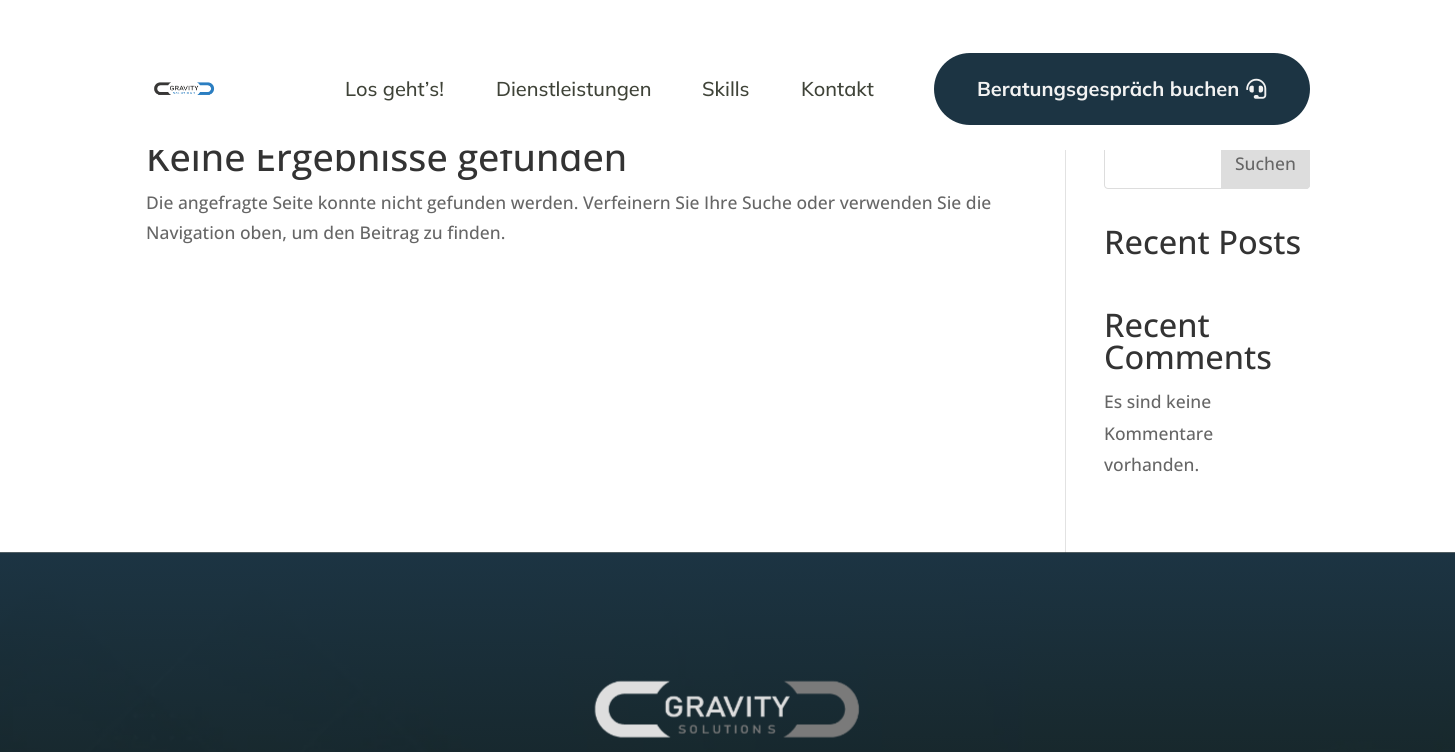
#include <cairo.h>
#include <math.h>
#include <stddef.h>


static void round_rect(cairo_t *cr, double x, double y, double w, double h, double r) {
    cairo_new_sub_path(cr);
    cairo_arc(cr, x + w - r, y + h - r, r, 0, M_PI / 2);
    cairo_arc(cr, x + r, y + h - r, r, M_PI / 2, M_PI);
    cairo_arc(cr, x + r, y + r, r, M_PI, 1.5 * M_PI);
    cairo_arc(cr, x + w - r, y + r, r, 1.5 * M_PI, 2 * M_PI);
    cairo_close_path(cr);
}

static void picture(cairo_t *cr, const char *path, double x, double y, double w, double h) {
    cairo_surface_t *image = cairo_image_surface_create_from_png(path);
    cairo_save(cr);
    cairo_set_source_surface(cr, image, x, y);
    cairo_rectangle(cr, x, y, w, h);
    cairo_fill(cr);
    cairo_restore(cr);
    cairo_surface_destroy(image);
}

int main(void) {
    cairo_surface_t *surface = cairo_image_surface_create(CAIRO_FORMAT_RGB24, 1455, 752);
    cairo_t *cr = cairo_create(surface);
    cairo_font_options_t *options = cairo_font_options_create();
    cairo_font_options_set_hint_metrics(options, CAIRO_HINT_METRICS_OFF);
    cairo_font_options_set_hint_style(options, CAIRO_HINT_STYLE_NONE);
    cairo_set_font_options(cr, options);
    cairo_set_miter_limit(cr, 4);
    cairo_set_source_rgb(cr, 1, 1, 1);
    cairo_paint(cr);
    cairo_select_font_face(cr, "Open Sans Medium", CAIRO_FONT_SLANT_NORMAL, CAIRO_FONT_WEIGHT_NORMAL);
    cairo_set_font_size(cr, 37.5);
    cairo_set_source_rgb(cr, 0.2, 0.2, 0.2);
    cairo_move_to(cr, 146, 171);
    cairo_show_text(cr, "Keine Ergebnisse gefunden");
    round_rect(cr, 1104.5, 139.5, 205, 49, 3.5);
    cairo_set_source_rgb(cr, 0.867, 0.867, 0.867);
    cairo_set_line_width(cr, 1);
    cairo_stroke(cr);
    cairo_new_path(cr);
    cairo_move_to(cr, 1221.5, 139.5);
    cairo_line_to(cr, 1306, 139.5);
    cairo_curve_to(cr, 1308, 139.5, 1309.5, 141, 1309.5, 143);
    cairo_line_to(cr, 1309.5, 185);
    cairo_curve_to(cr, 1309.5, 187, 1308, 188.5, 1306, 188.5);
    cairo_line_to(cr, 1221.5, 188.5);
    cairo_close_path(cr);
    cairo_fill_preserve(cr);
    cairo_stroke(cr);
    cairo_set_source_rgb(cr, 1, 1, 1);
    cairo_rectangle(cr, 149, 139, 1161, 11);
    cairo_fill(cr);
    picture(cr, "img1.png", 154, 82, 61, 13);
    cairo_select_font_face(cr, "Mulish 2 ExtraLight", CAIRO_FONT_SLANT_NORMAL, CAIRO_FONT_WEIGHT_NORMAL);
    cairo_set_font_size(cr, 20);
    cairo_set_source_rgb(cr, 0.247, 0.263, 0.22);
    cairo_move_to(cr, 345, 96);
    cairo_show_text(cr, "Los geht’s!");
    cairo_move_to(cr, 496, 96);
    cairo_show_text(cr, "Dienstleistungen");
    cairo_move_to(cr, 702, 96);
    cairo_show_text(cr, "Skills");
    cairo_move_to(cr, 801, 96);
    cairo_show_text(cr, "Kontakt");
    cairo_set_source_rgb(cr, 0.11, 0.204, 0.263);
    round_rect(cr, 934, 53, 376, 72, 36);
    cairo_fill(cr);
    cairo_select_font_face(cr, "Mulish ExtraLight", CAIRO_FONT_SLANT_NORMAL, CAIRO_FONT_WEIGHT_NORMAL);
    cairo_set_source_rgb(cr, 0.949, 0.949, 0.949);
    cairo_move_to(cr, 977, 96);
    cairo_show_text(cr, "Beratungsgespräch buchen");
    picture(cr, "img2.png", 1246, 78, 21, 21);
    cairo_select_font_face(cr, "Open Sans Medium", CAIRO_FONT_SLANT_NORMAL, CAIRO_FONT_WEIGHT_NORMAL);
    cairo_set_font_size(cr, 17.5);
    cairo_set_source_rgb(cr, 0.4, 0.4, 0.4);
    cairo_move_to(cr, 146, 209);
    cairo_show_text(cr, "Die angefragte Seite konnte nicht gefunden werden. Verfeinern Sie Ihre Suche oder verwenden Sie die");
    cairo_move_to(cr, 146, 239);
    cairo_show_text(cr, "Navigation oben, um den Beitrag zu finden.");
    cairo_move_to(cr, 1235, 170);
    cairo_show_text(cr, "Suchen");
    cairo_set_font_size(cr, 32.5);
    cairo_set_source_rgb(cr, 0.2, 0.2, 0.2);
    cairo_move_to(cr, 1104, 254);
    cairo_show_text(cr, "Recent Posts");
    cairo_move_to(cr, 1104, 337);
    cairo_show_text(cr, "Recent");
    cairo_move_to(cr, 1104, 369);
    cairo_show_text(cr, "Comments");
    cairo_set_font_size(cr, 17.5);
    cairo_set_source_rgb(cr, 0.4, 0.4, 0.4);
    cairo_move_to(cr, 1104, 408);
    cairo_show_text(cr, "Es sind keine");
    cairo_move_to(cr, 1104, 440);
    cairo_show_text(cr, "Kommentare");
    cairo_move_to(cr, 1104, 471);
    cairo_show_text(cr, "vorhanden.");
    cairo_set_source_rgb(cr, 0.886, 0.886, 0.886);
    cairo_rectangle(cr, 1065, 150, 1, 403);
    cairo_fill(cr);
    picture(cr, "img3.png", 0, 552, 1455, 200);
    picture(cr, "img4.png", 594, 680, 266, 58);
    cairo_surface_write_to_png(surface, "page.png");
    cairo_font_options_destroy(options);
    cairo_destroy(cr);
    cairo_surface_destroy(surface);
    return 0;
}
